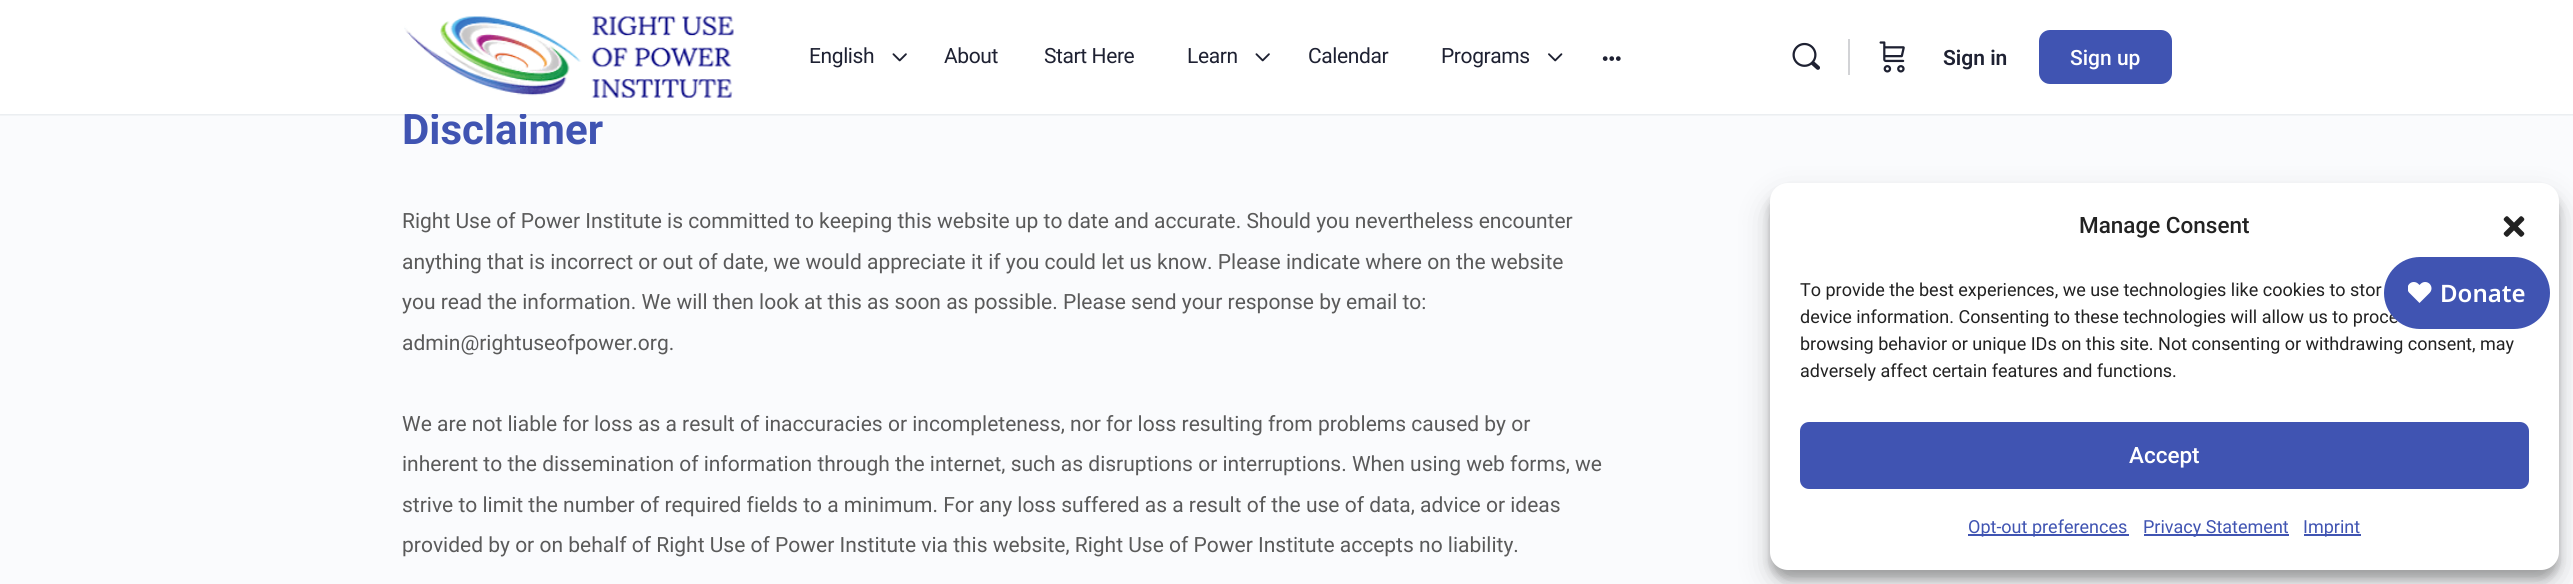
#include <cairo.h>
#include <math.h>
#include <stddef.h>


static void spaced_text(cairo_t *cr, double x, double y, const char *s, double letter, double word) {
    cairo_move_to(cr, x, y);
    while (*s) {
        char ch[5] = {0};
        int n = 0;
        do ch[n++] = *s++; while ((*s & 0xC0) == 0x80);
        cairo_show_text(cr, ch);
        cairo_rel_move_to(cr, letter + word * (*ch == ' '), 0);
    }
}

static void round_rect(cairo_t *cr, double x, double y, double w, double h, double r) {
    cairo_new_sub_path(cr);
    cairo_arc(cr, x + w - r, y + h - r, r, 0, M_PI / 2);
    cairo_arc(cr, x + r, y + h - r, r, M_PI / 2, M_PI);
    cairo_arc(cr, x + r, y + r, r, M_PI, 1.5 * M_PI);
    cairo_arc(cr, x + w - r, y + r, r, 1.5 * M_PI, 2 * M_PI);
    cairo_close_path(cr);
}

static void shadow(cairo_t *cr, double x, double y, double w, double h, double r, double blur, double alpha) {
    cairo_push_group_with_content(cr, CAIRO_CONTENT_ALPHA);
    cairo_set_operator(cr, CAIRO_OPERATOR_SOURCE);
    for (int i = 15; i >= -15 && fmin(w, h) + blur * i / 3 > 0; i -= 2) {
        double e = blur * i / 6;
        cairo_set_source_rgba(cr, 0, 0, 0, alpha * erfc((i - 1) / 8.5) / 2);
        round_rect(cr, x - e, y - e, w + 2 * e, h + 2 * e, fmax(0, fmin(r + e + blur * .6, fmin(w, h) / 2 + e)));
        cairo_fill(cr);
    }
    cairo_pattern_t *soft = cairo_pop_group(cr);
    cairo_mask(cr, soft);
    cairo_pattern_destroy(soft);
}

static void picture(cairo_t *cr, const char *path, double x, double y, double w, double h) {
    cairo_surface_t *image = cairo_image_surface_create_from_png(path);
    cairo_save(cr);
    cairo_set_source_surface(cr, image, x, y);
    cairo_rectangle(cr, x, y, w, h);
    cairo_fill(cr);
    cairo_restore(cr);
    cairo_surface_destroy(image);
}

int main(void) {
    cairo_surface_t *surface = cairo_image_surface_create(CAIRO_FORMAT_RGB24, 2573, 584);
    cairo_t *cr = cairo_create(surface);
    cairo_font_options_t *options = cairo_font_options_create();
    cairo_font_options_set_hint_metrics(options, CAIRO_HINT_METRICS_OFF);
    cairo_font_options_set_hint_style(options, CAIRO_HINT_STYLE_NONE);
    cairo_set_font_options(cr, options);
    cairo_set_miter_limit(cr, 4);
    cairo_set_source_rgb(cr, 0.98, 0.984, 0.992);
    cairo_paint(cr);
    cairo_set_source_rgb(cr, 0.255, 0.278, 0.424);
    shadow(cr, 0, 0, 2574, 114, 0, 1, 0.15);
    cairo_set_source_rgba(cr, 0.545, 0.553, 0.616, 0.05);
    cairo_rectangle(cr, 0, 114, 2573, 2);
    cairo_fill(cr);
    cairo_select_font_face(cr, "Roboto", CAIRO_FONT_SLANT_NORMAL, CAIRO_FONT_WEIGHT_BOLD);
    cairo_set_font_size(cr, 42);
    cairo_set_source_rgb(cr, 0.251, 0.329, 0.698);
    cairo_move_to(cr, 402, 144);
    cairo_show_text(cr, "Disclaimer");
    cairo_set_source_rgb(cr, 1, 1, 1);
    cairo_rectangle(cr, 0, 0, 2573, 114);
    cairo_fill(cr);
    picture(cr, "img1.png", 404, 16, 330, 82);
    cairo_select_font_face(cr, "Roboto", CAIRO_FONT_SLANT_NORMAL, CAIRO_FONT_WEIGHT_NORMAL);
    cairo_set_font_size(cr, 21);
    cairo_set_source_rgb(cr, 0.118, 0.129, 0.196);
    spaced_text(cr, 809, 63, "English", -0.4, 0);
    picture(cr, "img2.png", 892, 53, 15, 9);
    spaced_text(cr, 944, 63, "About", -0.4, 0);
    spaced_text(cr, 1044, 63, "Start Here", -0.4, 0);
    spaced_text(cr, 1187, 63, "Learn", -0.4, 0);
    picture(cr, "img2.png", 1255, 53, 15, 9);
    spaced_text(cr, 1308, 63, "Calendar", -0.4, 0);
    spaced_text(cr, 1441, 63, "Programs", -0.4, 0);
    picture(cr, "img3.png", 1548, 53, 15, 9);
    picture(cr, "img4.png", 1602, 56, 19, 5);
    picture(cr, "img5.png", 1792, 42, 28, 28);
    cairo_set_source_rgb(cr, 0.824, 0.827, 0.839);
    cairo_rectangle(cr, 1848, 39, 2, 36);
    cairo_fill(cr);
    picture(cr, "img6.png", 1879, 41, 26, 32);
    cairo_select_font_face(cr, "Roboto SemiBold", CAIRO_FONT_SLANT_NORMAL, CAIRO_FONT_WEIGHT_NORMAL);
    cairo_set_source_rgb(cr, 0.118, 0.129, 0.196);
    cairo_move_to(cr, 1943, 65);
    cairo_show_text(cr, "Sign in");
    cairo_set_source_rgb(cr, 0.251, 0.329, 0.698);
    round_rect(cr, 2040, 31, 131, 52, 10);
    cairo_fill_preserve(cr);
    cairo_stroke(cr);
    cairo_select_font_face(cr, "Roboto Medium", CAIRO_FONT_SLANT_NORMAL, CAIRO_FONT_WEIGHT_NORMAL);
    cairo_set_source_rgb(cr, 1, 1, 1);
    cairo_move_to(cr, 2070, 65);
    cairo_show_text(cr, "Sign up");
    cairo_select_font_face(cr, "Roboto", CAIRO_FONT_SLANT_NORMAL, CAIRO_FONT_WEIGHT_NORMAL);
    cairo_set_source_rgb(cr, 0.353, 0.353, 0.353);
    cairo_move_to(cr, 402, 228);
    cairo_show_text(cr, "Right Use of Power Institute is committed to keeping this website up to date and accurate. Should you nevertheless encounter");
    cairo_move_to(cr, 402, 269);
    cairo_show_text(cr, "anything that is incorrect or out of date, we would appreciate it if you could let us know. Please indicate where on the website");
    cairo_move_to(cr, 402, 309);
    cairo_show_text(cr, "you read the information. We will then look at this as soon as possible. Please send your response by email to:");
    cairo_move_to(cr, 402, 350);
    cairo_show_text(cr, "admin@rightuseofpower.org.");
    cairo_move_to(cr, 402, 431);
    cairo_show_text(cr, "We are not liable for loss as a result of inaccuracies or incompleteness, nor for loss resulting from problems caused by or");
    cairo_move_to(cr, 402, 471);
    cairo_show_text(cr, "inherent to the dissemination of information through the internet, such as disruptions or interruptions. When using web forms, we");
    cairo_move_to(cr, 402, 512);
    cairo_show_text(cr, "strive to limit the number of required fields to a minimum. For any loss suffered as a result of the use of data, advice or ideas");
    cairo_move_to(cr, 402, 552);
    cairo_show_text(cr, "provided by or on behalf of Right Use of Power Institute via this website, Right Use of Power Institute accepts no liability.");
    cairo_set_source_rgb(cr, 0, 0, 0);
    shadow(cr, 1770, 192, 789, 387, 18, 4.5, 0.23);
    shadow(cr, 1770, 198, 789, 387, 18, 15, 0.19);
    cairo_set_source_rgb(cr, 1, 1, 1);
    round_rect(cr, 1770, 183, 789, 387, 18);
    cairo_fill(cr);
    cairo_select_font_face(cr, "Roboto Medium", CAIRO_FONT_SLANT_NORMAL, CAIRO_FONT_WEIGHT_NORMAL);
    cairo_set_font_size(cr, 22.5);
    cairo_set_source_rgb(cr, 0.133, 0.133, 0.133);
    cairo_move_to(cr, 2079, 233);
    cairo_show_text(cr, "Manage Consent");
    picture(cr, "img7.png", 2503, 216, 22, 21);
    cairo_select_font_face(cr, "Roboto", CAIRO_FONT_SLANT_NORMAL, CAIRO_FONT_WEIGHT_NORMAL);
    cairo_set_font_size(cr, 18);
    cairo_move_to(cr, 1800, 296);
    cairo_show_text(cr, "To provide the best experiences, we use technologies like cookies to stor");
    cairo_move_to(cr, 1800, 323);
    cairo_show_text(cr, "device information. Consenting to these technologies will allow us to proce");
    cairo_move_to(cr, 1800, 350);
    cairo_show_text(cr, "browsing behavior or unique IDs on this site. Not consenting or withdrawing consent, may");
    cairo_move_to(cr, 1800, 377);
    cairo_show_text(cr, "adversely affect certain features and functions.");
    cairo_set_source_rgb(cr, 0.251, 0.329, 0.698);
    round_rect(cr, 1801, 423, 727, 65, 8);
    cairo_fill_preserve(cr);
    cairo_stroke(cr);
    cairo_select_font_face(cr, "Roboto Medium", CAIRO_FONT_SLANT_NORMAL, CAIRO_FONT_WEIGHT_NORMAL);
    cairo_set_font_size(cr, 22.5);
    cairo_set_source_rgb(cr, 1, 1, 1);
    cairo_move_to(cr, 2129, 463);
    cairo_show_text(cr, "Accept");
    cairo_set_source_rgb(cr, 0.251, 0.329, 0.698);
    cairo_rectangle(cr, 1968, 534, 161, 2);
    cairo_fill(cr);
    cairo_select_font_face(cr, "Roboto", CAIRO_FONT_SLANT_NORMAL, CAIRO_FONT_WEIGHT_NORMAL);
    cairo_set_font_size(cr, 18);
    cairo_move_to(cr, 1968, 533);
    cairo_show_text(cr, "Opt-out preferences");
    cairo_rectangle(cr, 2144, 534, 145, 2);
    cairo_fill(cr);
    cairo_move_to(cr, 2143, 533);
    cairo_show_text(cr, "Privacy Statement");
    cairo_rectangle(cr, 2304, 534, 57, 2);
    cairo_fill(cr);
    cairo_move_to(cr, 2303, 533);
    cairo_show_text(cr, "Imprint");
    round_rect(cr, 2384, 257, 166, 72, 36);
    cairo_fill(cr);
    picture(cr, "img8.png", 2408, 282, 24, 21);
    cairo_select_font_face(cr, "Noto Sans SemiBold", CAIRO_FONT_SLANT_NORMAL, CAIRO_FONT_WEIGHT_NORMAL);
    cairo_set_font_size(cr, 24);
    cairo_set_source_rgb(cr, 1, 1, 1);
    cairo_move_to(cr, 2440, 302);
    cairo_show_text(cr, "Donate");
    cairo_surface_write_to_png(surface, "page.png");
    cairo_font_options_destroy(options);
    cairo_destroy(cr);
    cairo_surface_destroy(surface);
    return 0;
}
